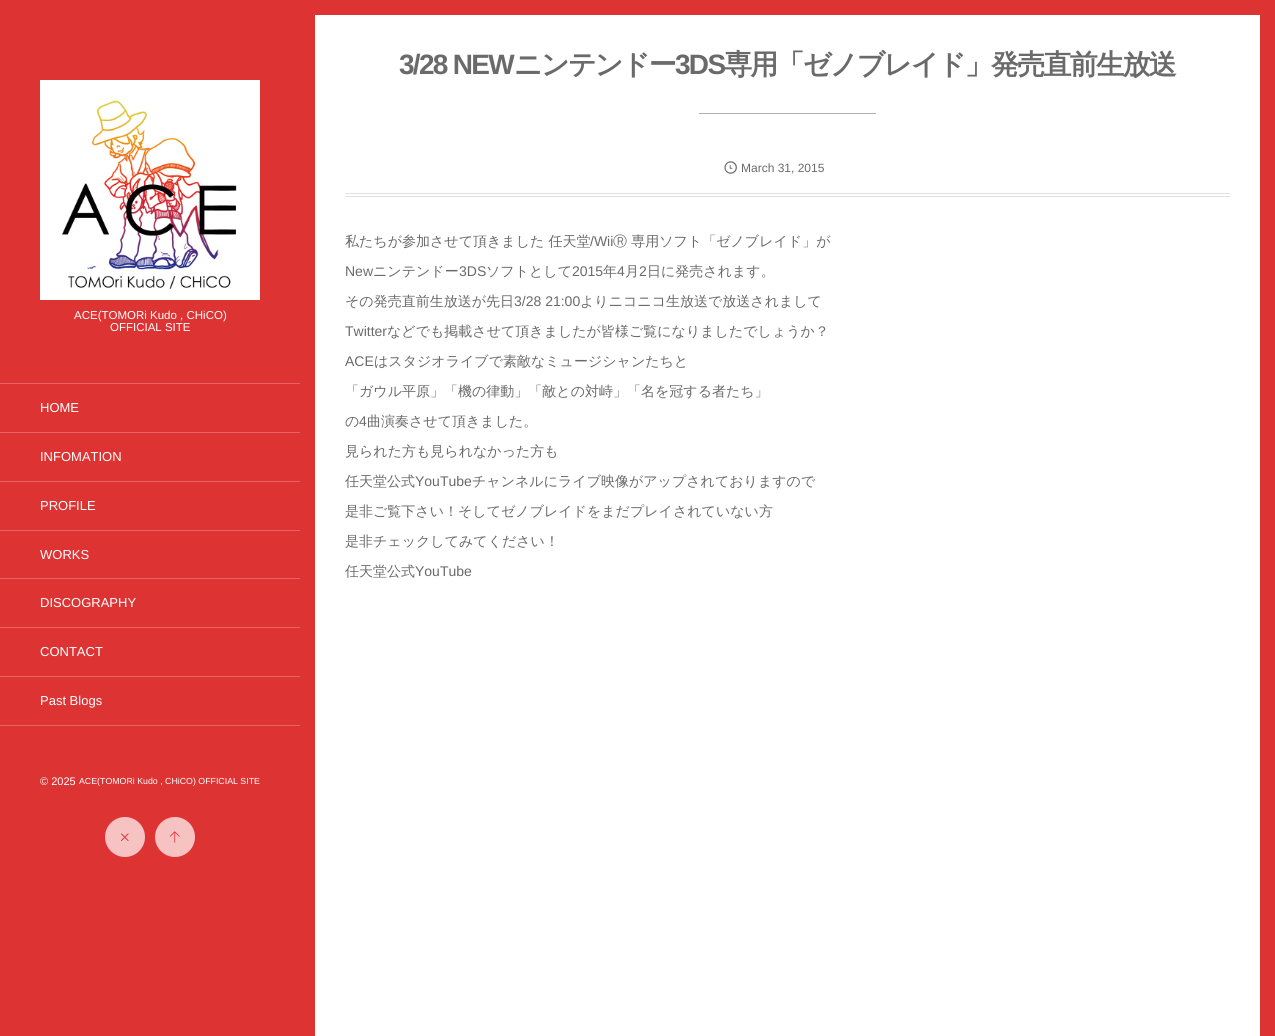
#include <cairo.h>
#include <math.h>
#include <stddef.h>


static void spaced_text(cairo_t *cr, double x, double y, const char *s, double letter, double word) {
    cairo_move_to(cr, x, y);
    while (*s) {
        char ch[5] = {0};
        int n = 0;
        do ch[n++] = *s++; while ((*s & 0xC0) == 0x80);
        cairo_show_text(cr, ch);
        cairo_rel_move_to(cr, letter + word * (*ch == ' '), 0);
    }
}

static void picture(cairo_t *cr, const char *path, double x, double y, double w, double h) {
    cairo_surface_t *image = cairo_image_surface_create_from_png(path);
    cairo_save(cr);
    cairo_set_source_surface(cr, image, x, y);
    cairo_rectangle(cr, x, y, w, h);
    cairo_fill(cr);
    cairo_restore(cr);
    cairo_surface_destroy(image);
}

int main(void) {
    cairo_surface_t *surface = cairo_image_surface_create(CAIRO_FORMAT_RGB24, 1275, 1036);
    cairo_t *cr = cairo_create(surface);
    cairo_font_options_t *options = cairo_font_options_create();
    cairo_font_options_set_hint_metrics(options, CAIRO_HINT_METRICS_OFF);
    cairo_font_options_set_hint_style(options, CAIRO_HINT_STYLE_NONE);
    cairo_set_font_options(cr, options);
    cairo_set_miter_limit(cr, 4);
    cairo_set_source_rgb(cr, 0.867, 0.2, 0.2);
    cairo_paint(cr);
    picture(cr, "img1.png", 40, 80, 220, 220);
    cairo_select_font_face(cr, "Liberation Sans", CAIRO_FONT_SLANT_NORMAL, CAIRO_FONT_WEIGHT_NORMAL);
    cairo_set_font_size(cr, 11.5);
    cairo_set_source_rgb(cr, 1, 1, 1);
    cairo_move_to(cr, 74, 319);
    cairo_show_text(cr, "ACE(TOMORi Kudo , CHiCO)");
    cairo_move_to(cr, 110, 331);
    cairo_show_text(cr, "OFFICIAL SITE");
    cairo_set_source_rgb(cr, 0.898, 0.392, 0.392);
    cairo_rectangle(cr, 0, 383, 300, 1);
    cairo_fill(cr);
    cairo_rectangle(cr, 0, 432, 300, 1);
    cairo_fill(cr);
    cairo_set_font_size(cr, 13);
    cairo_set_source_rgb(cr, 1, 1, 1);
    cairo_move_to(cr, 40, 412);
    cairo_show_text(cr, "HOME");
    cairo_set_source_rgb(cr, 0.898, 0.392, 0.392);
    cairo_rectangle(cr, 0, 481, 300, 1);
    cairo_fill(cr);
    cairo_set_source_rgb(cr, 1, 1, 1);
    cairo_move_to(cr, 40, 461);
    cairo_show_text(cr, "INFOMATION");
    cairo_set_source_rgb(cr, 0.898, 0.392, 0.392);
    cairo_rectangle(cr, 0, 530, 300, 1);
    cairo_fill(cr);
    cairo_set_source_rgb(cr, 1, 1, 1);
    cairo_move_to(cr, 40, 510);
    cairo_show_text(cr, "PROFILE");
    cairo_set_source_rgb(cr, 0.898, 0.392, 0.392);
    cairo_rectangle(cr, 0, 578, 300, 1);
    cairo_fill(cr);
    cairo_set_source_rgb(cr, 1, 1, 1);
    cairo_move_to(cr, 40, 559);
    cairo_show_text(cr, "WORKS");
    cairo_set_source_rgb(cr, 0.898, 0.392, 0.392);
    cairo_rectangle(cr, 0, 627, 300, 1);
    cairo_fill(cr);
    cairo_set_source_rgb(cr, 1, 1, 1);
    cairo_move_to(cr, 40, 607);
    cairo_show_text(cr, "DISCOGRAPHY");
    cairo_set_source_rgb(cr, 0.898, 0.392, 0.392);
    cairo_rectangle(cr, 0, 676, 300, 1);
    cairo_fill(cr);
    cairo_set_source_rgb(cr, 1, 1, 1);
    cairo_move_to(cr, 40, 656);
    cairo_show_text(cr, "CONTACT");
    cairo_set_source_rgb(cr, 0.898, 0.392, 0.392);
    cairo_rectangle(cr, 0, 725, 300, 1);
    cairo_fill(cr);
    cairo_set_source_rgb(cr, 1, 1, 1);
    cairo_move_to(cr, 40, 705);
    cairo_show_text(cr, "Past Blogs");
    cairo_set_font_size(cr, 11);
    cairo_move_to(cr, 40, 785);
    cairo_show_text(cr, "© 2025");
    cairo_set_font_size(cr, 8.8);
    cairo_move_to(cr, 79, 784);
    cairo_show_text(cr, "ACE(TOMORi Kudo , CHiCO) OFFICIAL SITE");
    cairo_set_source_rgb(cr, 0.961, 0.761, 0.761);
    cairo_new_path(cr);
    cairo_arc(cr, 125, 837, 20, 0, 2 * M_PI);
    cairo_fill(cr);
    picture(cr, "img2.png", 121, 833, 8, 8);
    cairo_arc(cr, 175, 837, 20, 0, 2 * M_PI);
    cairo_fill(cr);
    picture(cr, "img3.png", 169, 831, 11, 12);
    cairo_set_source_rgb(cr, 1, 1, 1);
    cairo_rectangle(cr, 315, 15, 945, 1021);
    cairo_fill(cr);
    cairo_select_font_face(cr, "Liberation Sans", CAIRO_FONT_SLANT_NORMAL, CAIRO_FONT_WEIGHT_BOLD);
    cairo_set_font_size(cr, 28);
    cairo_set_source_rgb(cr, 0.416, 0.416, 0.416);
    spaced_text(cr, 399, 74, "3/28 NEW", -1.7, 0);
    cairo_select_font_face(cr, "WenQuanYi Zen Hei", CAIRO_FONT_SLANT_NORMAL, CAIRO_FONT_WEIGHT_BOLD);
    spaced_text(cr, 514, 74, "ニンテンドー", -1.7, 0);
    cairo_select_font_face(cr, "Liberation Sans", CAIRO_FONT_SLANT_NORMAL, CAIRO_FONT_WEIGHT_BOLD);
    spaced_text(cr, 675, 74, "3DS", -1.7, 0);
    cairo_select_font_face(cr, "WenQuanYi Zen Hei", CAIRO_FONT_SLANT_NORMAL, CAIRO_FONT_WEIGHT_BOLD);
    spaced_text(cr, 724, 74, "専用「ゼノブレイド」発売直前生放送", -1.7, 0);
    cairo_set_source_rgb(cr, 0.686, 0.686, 0.686);
    cairo_rectangle(cr, 699, 113, 177, 1);
    cairo_fill(cr);
    cairo_set_source_rgb(cr, 0.882, 0.882, 0.882);
    cairo_rectangle(cr, 345, 193, 885, 1);
    cairo_fill(cr);
    cairo_rectangle(cr, 345, 196, 885, 1);
    cairo_fill(cr);
    picture(cr, "img4.png", 724, 161, 13, 13);
    cairo_select_font_face(cr, "Liberation Sans", CAIRO_FONT_SLANT_NORMAL, CAIRO_FONT_WEIGHT_NORMAL);
    cairo_set_font_size(cr, 12);
    cairo_set_source_rgb(cr, 0.416, 0.416, 0.416);
    cairo_move_to(cr, 741, 172);
    cairo_show_text(cr, "March 31, 2015");
    cairo_select_font_face(cr, "WenQuanYi Zen Hei Medium", CAIRO_FONT_SLANT_NORMAL, CAIRO_FONT_WEIGHT_NORMAL);
    cairo_set_font_size(cr, 14);
    cairo_move_to(cr, 345, 246);
    cairo_show_text(cr, "私たちが参加させて頂きました 任天堂");
    cairo_select_font_face(cr, "Liberation Sans", CAIRO_FONT_SLANT_NORMAL, CAIRO_FONT_WEIGHT_NORMAL);
    cairo_move_to(cr, 590, 246);
    cairo_show_text(cr, "/Wii");
    cairo_select_font_face(cr, "WenQuanYi Zen Hei Medium", CAIRO_FONT_SLANT_NORMAL, CAIRO_FONT_WEIGHT_NORMAL);
    cairo_move_to(cr, 613, 246);
    cairo_show_text(cr, "Ⓡ 専用ソフト「ゼノブレイド」が");
    cairo_select_font_face(cr, "Liberation Sans", CAIRO_FONT_SLANT_NORMAL, CAIRO_FONT_WEIGHT_NORMAL);
    cairo_move_to(cr, 345, 276);
    cairo_show_text(cr, "New");
    cairo_select_font_face(cr, "WenQuanYi Zen Hei Medium", CAIRO_FONT_SLANT_NORMAL, CAIRO_FONT_WEIGHT_NORMAL);
    cairo_move_to(cr, 373, 276);
    cairo_show_text(cr, "ニンテンドー");
    cairo_select_font_face(cr, "Liberation Sans", CAIRO_FONT_SLANT_NORMAL, CAIRO_FONT_WEIGHT_NORMAL);
    cairo_move_to(cr, 459, 276);
    cairo_show_text(cr, "3DS");
    cairo_select_font_face(cr, "WenQuanYi Zen Hei Medium", CAIRO_FONT_SLANT_NORMAL, CAIRO_FONT_WEIGHT_NORMAL);
    cairo_move_to(cr, 486, 276);
    cairo_show_text(cr, "ソフトとして");
    cairo_select_font_face(cr, "Liberation Sans", CAIRO_FONT_SLANT_NORMAL, CAIRO_FONT_WEIGHT_NORMAL);
    cairo_move_to(cr, 572, 276);
    cairo_show_text(cr, "2015");
    cairo_select_font_face(cr, "WenQuanYi Zen Hei Medium", CAIRO_FONT_SLANT_NORMAL, CAIRO_FONT_WEIGHT_NORMAL);
    cairo_move_to(cr, 603, 276);
    cairo_show_text(cr, "年");
    cairo_select_font_face(cr, "Liberation Sans", CAIRO_FONT_SLANT_NORMAL, CAIRO_FONT_WEIGHT_NORMAL);
    cairo_move_to(cr, 617, 276);
    cairo_show_text(cr, "4");
    cairo_select_font_face(cr, "WenQuanYi Zen Hei Medium", CAIRO_FONT_SLANT_NORMAL, CAIRO_FONT_WEIGHT_NORMAL);
    cairo_move_to(cr, 625, 276);
    cairo_show_text(cr, "月");
    cairo_select_font_face(cr, "Liberation Sans", CAIRO_FONT_SLANT_NORMAL, CAIRO_FONT_WEIGHT_NORMAL);
    cairo_move_to(cr, 639, 276);
    cairo_show_text(cr, "2");
    cairo_select_font_face(cr, "WenQuanYi Zen Hei Medium", CAIRO_FONT_SLANT_NORMAL, CAIRO_FONT_WEIGHT_NORMAL);
    cairo_move_to(cr, 647, 276);
    cairo_show_text(cr, "日に発売されます。");
    cairo_move_to(cr, 345, 306);
    cairo_show_text(cr, "その発売直前生放送が先日");
    cairo_select_font_face(cr, "Liberation Sans", CAIRO_FONT_SLANT_NORMAL, CAIRO_FONT_WEIGHT_NORMAL);
    cairo_move_to(cr, 514, 306);
    cairo_show_text(cr, "3/28 21:00");
    cairo_select_font_face(cr, "WenQuanYi Zen Hei Medium", CAIRO_FONT_SLANT_NORMAL, CAIRO_FONT_WEIGHT_NORMAL);
    cairo_move_to(cr, 580, 306);
    cairo_show_text(cr, "よりニコニコ生放送で放送されまして");
    cairo_select_font_face(cr, "Liberation Sans", CAIRO_FONT_SLANT_NORMAL, CAIRO_FONT_WEIGHT_NORMAL);
    cairo_move_to(cr, 345, 336);
    cairo_show_text(cr, "Twitter");
    cairo_select_font_face(cr, "WenQuanYi Zen Hei Medium", CAIRO_FONT_SLANT_NORMAL, CAIRO_FONT_WEIGHT_NORMAL);
    cairo_move_to(cr, 387, 336);
    cairo_show_text(cr, "などでも掲載させて頂きましたが皆様ご覧になりましたでしょうか？");
    cairo_select_font_face(cr, "Liberation Sans", CAIRO_FONT_SLANT_NORMAL, CAIRO_FONT_WEIGHT_NORMAL);
    cairo_move_to(cr, 345, 366);
    cairo_show_text(cr, "ACE");
    cairo_select_font_face(cr, "WenQuanYi Zen Hei Medium", CAIRO_FONT_SLANT_NORMAL, CAIRO_FONT_WEIGHT_NORMAL);
    cairo_move_to(cr, 374, 366);
    cairo_show_text(cr, "はスタジオライブで素敵なミュージシャンたちと");
    cairo_move_to(cr, 345, 396);
    cairo_show_text(cr, "「ガウル平原」「機の律動」「敵との対峙」「名を冠する者たち」");
    cairo_move_to(cr, 345, 426);
    cairo_show_text(cr, "の");
    cairo_select_font_face(cr, "Liberation Sans", CAIRO_FONT_SLANT_NORMAL, CAIRO_FONT_WEIGHT_NORMAL);
    cairo_move_to(cr, 359, 426);
    cairo_show_text(cr, "4");
    cairo_select_font_face(cr, "WenQuanYi Zen Hei Medium", CAIRO_FONT_SLANT_NORMAL, CAIRO_FONT_WEIGHT_NORMAL);
    cairo_move_to(cr, 367, 426);
    cairo_show_text(cr, "曲演奏させて頂きました。");
    cairo_move_to(cr, 345, 456);
    cairo_show_text(cr, "見られた方も見られなかった方も");
    cairo_move_to(cr, 345, 486);
    cairo_show_text(cr, "任天堂公式");
    cairo_select_font_face(cr, "Liberation Sans", CAIRO_FONT_SLANT_NORMAL, CAIRO_FONT_WEIGHT_NORMAL);
    cairo_move_to(cr, 415, 486);
    cairo_show_text(cr, "YouTube");
    cairo_select_font_face(cr, "WenQuanYi Zen Hei Medium", CAIRO_FONT_SLANT_NORMAL, CAIRO_FONT_WEIGHT_NORMAL);
    cairo_move_to(cr, 472, 486);
    cairo_show_text(cr, "チャンネルにライブ映像がアップされておりますので");
    cairo_move_to(cr, 345, 516);
    cairo_show_text(cr, "是非ご覧下さい！そしてゼノブレイドをまだプレイされていない方");
    cairo_move_to(cr, 345, 546);
    cairo_show_text(cr, "是非チェックしてみてください！");
    cairo_move_to(cr, 345, 576);
    cairo_show_text(cr, "任天堂公式");
    cairo_select_font_face(cr, "Liberation Sans", CAIRO_FONT_SLANT_NORMAL, CAIRO_FONT_WEIGHT_NORMAL);
    cairo_move_to(cr, 415, 576);
    cairo_show_text(cr, "YouTube");
    cairo_surface_write_to_png(surface, "page.png");
    cairo_font_options_destroy(options);
    cairo_destroy(cr);
    cairo_surface_destroy(surface);
    return 0;
}
